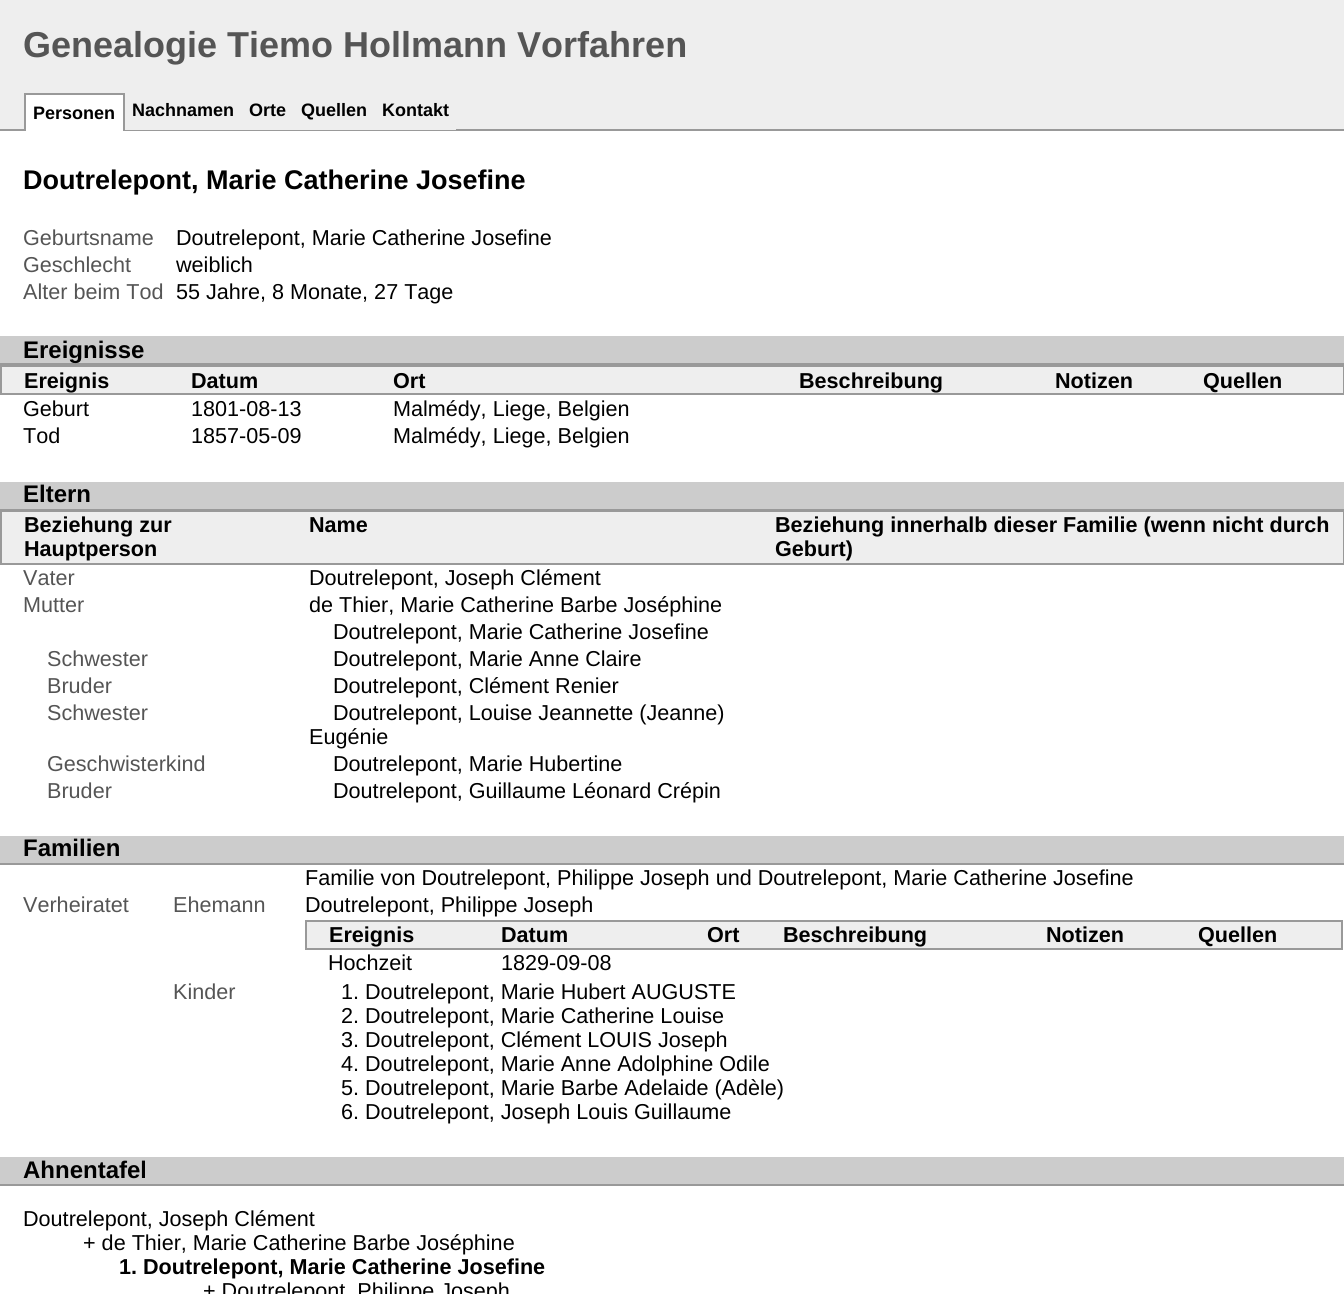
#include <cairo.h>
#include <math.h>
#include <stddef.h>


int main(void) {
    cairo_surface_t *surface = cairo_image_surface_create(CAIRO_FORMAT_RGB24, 1344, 1294);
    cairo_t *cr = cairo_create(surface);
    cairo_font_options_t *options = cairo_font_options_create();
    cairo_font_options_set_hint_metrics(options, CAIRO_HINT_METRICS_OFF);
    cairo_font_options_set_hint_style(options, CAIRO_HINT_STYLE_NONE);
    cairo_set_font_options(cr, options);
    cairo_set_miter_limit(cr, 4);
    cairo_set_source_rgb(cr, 0.933, 0.933, 0.933);
    cairo_paint(cr);
    cairo_select_font_face(cr, "Liberation Sans", CAIRO_FONT_SLANT_NORMAL, CAIRO_FONT_WEIGHT_BOLD);
    cairo_set_font_size(cr, 36);
    cairo_set_source_rgb(cr, 0.333, 0.333, 0.333);
    cairo_move_to(cr, 23, 57);
    cairo_show_text(cr, "Genealogie Tiemo Hollmann Vorfahren");
    cairo_set_source_rgb(cr, 0.6, 0.6, 0.6);
    cairo_rectangle(cr, 0, 129, 1344, 2);
    cairo_fill(cr);
    cairo_set_source_rgb(cr, 1, 1, 1);
    cairo_rectangle(cr, 26, 95, 97, 36);
    cairo_fill(cr);
    cairo_set_source_rgb(cr, 0.6, 0.6, 0.6);
    cairo_rectangle(cr, 24, 93, 101, 2);
    cairo_fill(cr);
    cairo_rectangle(cr, 123, 93, 2, 38);
    cairo_fill(cr);
    cairo_rectangle(cr, 24, 93, 2, 38);
    cairo_fill(cr);
    cairo_set_font_size(cr, 18);
    cairo_set_source_rgb(cr, 0, 0, 0);
    cairo_move_to(cr, 33, 119);
    cairo_show_text(cr, "Personen");
    cairo_set_source_rgb(cr, 0.933, 0.933, 0.933);
    cairo_rectangle(cr, 125, 129, 331, 1);
    cairo_fill(cr);
    cairo_set_source_rgb(cr, 0, 0, 0);
    cairo_move_to(cr, 132, 116);
    cairo_show_text(cr, "Nachnamen");
    cairo_move_to(cr, 249, 116);
    cairo_show_text(cr, "Orte");
    cairo_move_to(cr, 301, 116);
    cairo_show_text(cr, "Quellen");
    cairo_move_to(cr, 382, 116);
    cairo_show_text(cr, "Kontakt");
    cairo_set_source_rgb(cr, 1, 1, 1);
    cairo_rectangle(cr, 0, 131, 1344, 1163);
    cairo_fill(cr);
    cairo_set_font_size(cr, 27);
    cairo_set_source_rgb(cr, 0, 0, 0);
    cairo_move_to(cr, 23, 189);
    cairo_show_text(cr, "Doutrelepont, Marie Catherine Josefine");
    cairo_select_font_face(cr, "Liberation Sans", CAIRO_FONT_SLANT_NORMAL, CAIRO_FONT_WEIGHT_NORMAL);
    cairo_set_font_size(cr, 21.6);
    cairo_set_source_rgb(cr, 0.333, 0.333, 0.333);
    cairo_move_to(cr, 23, 245);
    cairo_show_text(cr, "Geburtsname");
    cairo_set_source_rgb(cr, 0, 0, 0);
    cairo_move_to(cr, 176, 245);
    cairo_show_text(cr, "Doutrelepont, Marie Catherine Josefine");
    cairo_set_source_rgb(cr, 0.333, 0.333, 0.333);
    cairo_move_to(cr, 23, 272);
    cairo_show_text(cr, "Geschlecht");
    cairo_set_source_rgb(cr, 0, 0, 0);
    cairo_move_to(cr, 176, 272);
    cairo_show_text(cr, "weiblich");
    cairo_set_source_rgb(cr, 0.333, 0.333, 0.333);
    cairo_move_to(cr, 23, 299);
    cairo_show_text(cr, "Alter beim Tod");
    cairo_set_source_rgb(cr, 0, 0, 0);
    cairo_move_to(cr, 176, 299);
    cairo_show_text(cr, "55 Jahre, 8 Monate, 27 Tage");
    cairo_set_source_rgb(cr, 0.8, 0.8, 0.8);
    cairo_rectangle(cr, 0, 336, 1344, 27);
    cairo_fill(cr);
    cairo_set_source_rgb(cr, 0.6, 0.6, 0.6);
    cairo_rectangle(cr, 0, 363, 1344, 2);
    cairo_fill(cr);
    cairo_select_font_face(cr, "Liberation Sans", CAIRO_FONT_SLANT_NORMAL, CAIRO_FONT_WEIGHT_BOLD);
    cairo_set_font_size(cr, 24);
    cairo_set_source_rgb(cr, 0, 0, 0);
    cairo_move_to(cr, 23, 358);
    cairo_show_text(cr, "Ereignisse");
    cairo_set_source_rgb(cr, 0.933, 0.933, 0.933);
    cairo_rectangle(cr, 2, 367, 1341, 26);
    cairo_fill(cr);
    cairo_set_source_rgb(cr, 0.6, 0.6, 0.6);
    cairo_rectangle(cr, 0, 365, 1344, 2);
    cairo_fill(cr);
    cairo_rectangle(cr, 1343, 365, 1, 30);
    cairo_fill(cr);
    cairo_rectangle(cr, 0, 393, 1344, 2);
    cairo_fill(cr);
    cairo_rectangle(cr, 0, 365, 2, 30);
    cairo_fill(cr);
    cairo_set_font_size(cr, 21.6);
    cairo_set_source_rgb(cr, 0, 0, 0);
    cairo_move_to(cr, 24, 388);
    cairo_show_text(cr, "Ereignis");
    cairo_move_to(cr, 191, 388);
    cairo_show_text(cr, "Datum");
    cairo_move_to(cr, 393, 388);
    cairo_show_text(cr, "Ort");
    cairo_move_to(cr, 799, 388);
    cairo_show_text(cr, "Beschreibung");
    cairo_move_to(cr, 1055, 388);
    cairo_show_text(cr, "Notizen");
    cairo_move_to(cr, 1203, 388);
    cairo_show_text(cr, "Quellen");
    cairo_select_font_face(cr, "Liberation Sans", CAIRO_FONT_SLANT_NORMAL, CAIRO_FONT_WEIGHT_NORMAL);
    cairo_move_to(cr, 23, 416);
    cairo_show_text(cr, "Geburt");
    cairo_move_to(cr, 191, 416);
    cairo_show_text(cr, "1801-08-13");
    cairo_move_to(cr, 393, 416);
    cairo_show_text(cr, "Malmédy, Liege, Belgien");
    cairo_move_to(cr, 23, 443);
    cairo_show_text(cr, "Tod");
    cairo_move_to(cr, 191, 443);
    cairo_show_text(cr, "1857-05-09");
    cairo_move_to(cr, 393, 443);
    cairo_show_text(cr, "Malmédy, Liege, Belgien");
    cairo_set_source_rgb(cr, 0.8, 0.8, 0.8);
    cairo_rectangle(cr, 0, 482, 1344, 27);
    cairo_fill(cr);
    cairo_set_source_rgb(cr, 0.6, 0.6, 0.6);
    cairo_rectangle(cr, 0, 509, 1344, 1);
    cairo_fill(cr);
    cairo_select_font_face(cr, "Liberation Sans", CAIRO_FONT_SLANT_NORMAL, CAIRO_FONT_WEIGHT_BOLD);
    cairo_set_font_size(cr, 24);
    cairo_set_source_rgb(cr, 0, 0, 0);
    cairo_move_to(cr, 23, 502);
    cairo_show_text(cr, "Eltern");
    cairo_set_source_rgb(cr, 0.933, 0.933, 0.933);
    cairo_rectangle(cr, 2, 512, 1341, 51);
    cairo_fill(cr);
    cairo_set_source_rgb(cr, 0.6, 0.6, 0.6);
    cairo_rectangle(cr, 0, 510, 1344, 2);
    cairo_fill(cr);
    cairo_rectangle(cr, 1343, 510, 1, 54);
    cairo_fill(cr);
    cairo_rectangle(cr, 0, 563, 1344, 2);
    cairo_fill(cr);
    cairo_rectangle(cr, 0, 510, 2, 54);
    cairo_fill(cr);
    cairo_set_font_size(cr, 21.6);
    cairo_set_source_rgb(cr, 0, 0, 0);
    cairo_move_to(cr, 24, 532);
    cairo_show_text(cr, "Beziehung zur");
    cairo_move_to(cr, 24, 556);
    cairo_show_text(cr, "Hauptperson");
    cairo_move_to(cr, 309, 532);
    cairo_show_text(cr, "Name");
    cairo_move_to(cr, 775, 532);
    cairo_show_text(cr, "Beziehung innerhalb dieser Familie (wenn nicht durch");
    cairo_move_to(cr, 775, 556);
    cairo_show_text(cr, "Geburt)");
    cairo_select_font_face(cr, "Liberation Sans", CAIRO_FONT_SLANT_NORMAL, CAIRO_FONT_WEIGHT_NORMAL);
    cairo_set_source_rgb(cr, 0.333, 0.333, 0.333);
    cairo_move_to(cr, 23, 585);
    cairo_show_text(cr, "Vater");
    cairo_set_source_rgb(cr, 0, 0, 0);
    cairo_move_to(cr, 309, 585);
    cairo_show_text(cr, "Doutrelepont, Joseph Clément");
    cairo_set_source_rgb(cr, 0.333, 0.333, 0.333);
    cairo_move_to(cr, 23, 612);
    cairo_show_text(cr, "Mutter");
    cairo_set_source_rgb(cr, 0, 0, 0);
    cairo_move_to(cr, 309, 612);
    cairo_show_text(cr, "de Thier, Marie Catherine Barbe Joséphine");
    cairo_move_to(cr, 333, 639);
    cairo_show_text(cr, "Doutrelepont, Marie Catherine Josefine");
    cairo_set_source_rgb(cr, 0.333, 0.333, 0.333);
    cairo_move_to(cr, 47, 666);
    cairo_show_text(cr, "Schwester");
    cairo_set_source_rgb(cr, 0, 0, 0);
    cairo_move_to(cr, 333, 666);
    cairo_show_text(cr, "Doutrelepont, Marie Anne Claire");
    cairo_set_source_rgb(cr, 0.333, 0.333, 0.333);
    cairo_move_to(cr, 47, 693);
    cairo_show_text(cr, "Bruder");
    cairo_set_source_rgb(cr, 0, 0, 0);
    cairo_move_to(cr, 333, 693);
    cairo_show_text(cr, "Doutrelepont, Clément Renier");
    cairo_set_source_rgb(cr, 0.333, 0.333, 0.333);
    cairo_move_to(cr, 47, 720);
    cairo_show_text(cr, "Schwester");
    cairo_set_source_rgb(cr, 0, 0, 0);
    cairo_move_to(cr, 333, 720);
    cairo_show_text(cr, "Doutrelepont, Louise Jeannette (Jeanne)");
    cairo_move_to(cr, 309, 744);
    cairo_show_text(cr, "Eugénie");
    cairo_set_source_rgb(cr, 0.333, 0.333, 0.333);
    cairo_move_to(cr, 47, 771);
    cairo_show_text(cr, "Geschwisterkind");
    cairo_set_source_rgb(cr, 0, 0, 0);
    cairo_move_to(cr, 333, 771);
    cairo_show_text(cr, "Doutrelepont, Marie Hubertine");
    cairo_set_source_rgb(cr, 0.333, 0.333, 0.333);
    cairo_move_to(cr, 47, 798);
    cairo_show_text(cr, "Bruder");
    cairo_set_source_rgb(cr, 0, 0, 0);
    cairo_move_to(cr, 333, 798);
    cairo_show_text(cr, "Doutrelepont, Guillaume Léonard Crépin");
    cairo_set_source_rgb(cr, 0.8, 0.8, 0.8);
    cairo_rectangle(cr, 0, 836, 1344, 27);
    cairo_fill(cr);
    cairo_set_source_rgb(cr, 0.6, 0.6, 0.6);
    cairo_rectangle(cr, 0, 863, 1344, 2);
    cairo_fill(cr);
    cairo_select_font_face(cr, "Liberation Sans", CAIRO_FONT_SLANT_NORMAL, CAIRO_FONT_WEIGHT_BOLD);
    cairo_set_font_size(cr, 24);
    cairo_set_source_rgb(cr, 0, 0, 0);
    cairo_move_to(cr, 23, 856);
    cairo_show_text(cr, "Familien");
    cairo_select_font_face(cr, "Liberation Sans", CAIRO_FONT_SLANT_NORMAL, CAIRO_FONT_WEIGHT_NORMAL);
    cairo_set_font_size(cr, 21.6);
    cairo_move_to(cr, 305, 885);
    cairo_show_text(cr, "Familie von Doutrelepont, Philippe Joseph und Doutrelepont, Marie Catherine Josefine");
    cairo_set_source_rgb(cr, 0.333, 0.333, 0.333);
    cairo_move_to(cr, 23, 912);
    cairo_show_text(cr, "Verheiratet");
    cairo_move_to(cr, 173, 912);
    cairo_show_text(cr, "Ehemann");
    cairo_set_source_rgb(cr, 0, 0, 0);
    cairo_move_to(cr, 305, 912);
    cairo_show_text(cr, "Doutrelepont, Philippe Joseph");
    cairo_set_source_rgb(cr, 0.933, 0.933, 0.933);
    cairo_rectangle(cr, 307, 922, 1034, 26);
    cairo_fill(cr);
    cairo_set_source_rgb(cr, 0.6, 0.6, 0.6);
    cairo_rectangle(cr, 305, 920, 1038, 2);
    cairo_fill(cr);
    cairo_rectangle(cr, 1341, 920, 2, 30);
    cairo_fill(cr);
    cairo_rectangle(cr, 305, 948, 1038, 2);
    cairo_fill(cr);
    cairo_rectangle(cr, 305, 920, 2, 30);
    cairo_fill(cr);
    cairo_select_font_face(cr, "Liberation Sans", CAIRO_FONT_SLANT_NORMAL, CAIRO_FONT_WEIGHT_BOLD);
    cairo_set_source_rgb(cr, 0, 0, 0);
    cairo_move_to(cr, 329, 942);
    cairo_show_text(cr, "Ereignis");
    cairo_move_to(cr, 501, 942);
    cairo_show_text(cr, "Datum");
    cairo_move_to(cr, 707, 942);
    cairo_show_text(cr, "Ort");
    cairo_move_to(cr, 783, 942);
    cairo_show_text(cr, "Beschreibung");
    cairo_move_to(cr, 1046, 942);
    cairo_show_text(cr, "Notizen");
    cairo_move_to(cr, 1198, 942);
    cairo_show_text(cr, "Quellen");
    cairo_select_font_face(cr, "Liberation Sans", CAIRO_FONT_SLANT_NORMAL, CAIRO_FONT_WEIGHT_NORMAL);
    cairo_move_to(cr, 328, 970);
    cairo_show_text(cr, "Hochzeit");
    cairo_move_to(cr, 501, 970);
    cairo_show_text(cr, "1829-09-08");
    cairo_set_source_rgb(cr, 0.333, 0.333, 0.333);
    cairo_move_to(cr, 173, 999);
    cairo_show_text(cr, "Kinder");
    cairo_set_source_rgb(cr, 0, 0, 0);
    cairo_move_to(cr, 341, 999);
    cairo_show_text(cr, "1. Doutrelepont, Marie Hubert AUGUSTE");
    cairo_move_to(cr, 341, 1023);
    cairo_show_text(cr, "2. Doutrelepont, Marie Catherine Louise");
    cairo_move_to(cr, 341, 1047);
    cairo_show_text(cr, "3. Doutrelepont, Clément LOUIS Joseph");
    cairo_move_to(cr, 341, 1071);
    cairo_show_text(cr, "4. Doutrelepont, Marie Anne Adolphine Odile");
    cairo_move_to(cr, 341, 1095);
    cairo_show_text(cr, "5. Doutrelepont, Marie Barbe Adelaide (Adèle)");
    cairo_move_to(cr, 341, 1119);
    cairo_show_text(cr, "6. Doutrelepont, Joseph Louis Guillaume");
    cairo_set_source_rgb(cr, 0.8, 0.8, 0.8);
    cairo_rectangle(cr, 0, 1157, 1344, 27);
    cairo_fill(cr);
    cairo_set_source_rgb(cr, 0.6, 0.6, 0.6);
    cairo_rectangle(cr, 0, 1184, 1344, 2);
    cairo_fill(cr);
    cairo_select_font_face(cr, "Liberation Sans", CAIRO_FONT_SLANT_NORMAL, CAIRO_FONT_WEIGHT_BOLD);
    cairo_set_font_size(cr, 24);
    cairo_set_source_rgb(cr, 0, 0, 0);
    cairo_move_to(cr, 23, 1178);
    cairo_show_text(cr, "Ahnentafel");
    cairo_select_font_face(cr, "Liberation Sans", CAIRO_FONT_SLANT_NORMAL, CAIRO_FONT_WEIGHT_NORMAL);
    cairo_set_font_size(cr, 21.6);
    cairo_move_to(cr, 23, 1226);
    cairo_show_text(cr, "Doutrelepont, Joseph Clément");
    cairo_move_to(cr, 83, 1250);
    cairo_show_text(cr, "+ de Thier, Marie Catherine Barbe Joséphine");
    cairo_select_font_face(cr, "Liberation Sans", CAIRO_FONT_SLANT_NORMAL, CAIRO_FONT_WEIGHT_BOLD);
    cairo_move_to(cr, 119, 1274);
    cairo_show_text(cr, "1. Doutrelepont, Marie Catherine Josefine");
    cairo_select_font_face(cr, "Liberation Sans", CAIRO_FONT_SLANT_NORMAL, CAIRO_FONT_WEIGHT_NORMAL);
    cairo_move_to(cr, 203, 1298);
    cairo_show_text(cr, "+ Doutrelepont, Philippe Joseph");
    cairo_surface_write_to_png(surface, "page.png");
    cairo_font_options_destroy(options);
    cairo_destroy(cr);
    cairo_surface_destroy(surface);
    return 0;
}
